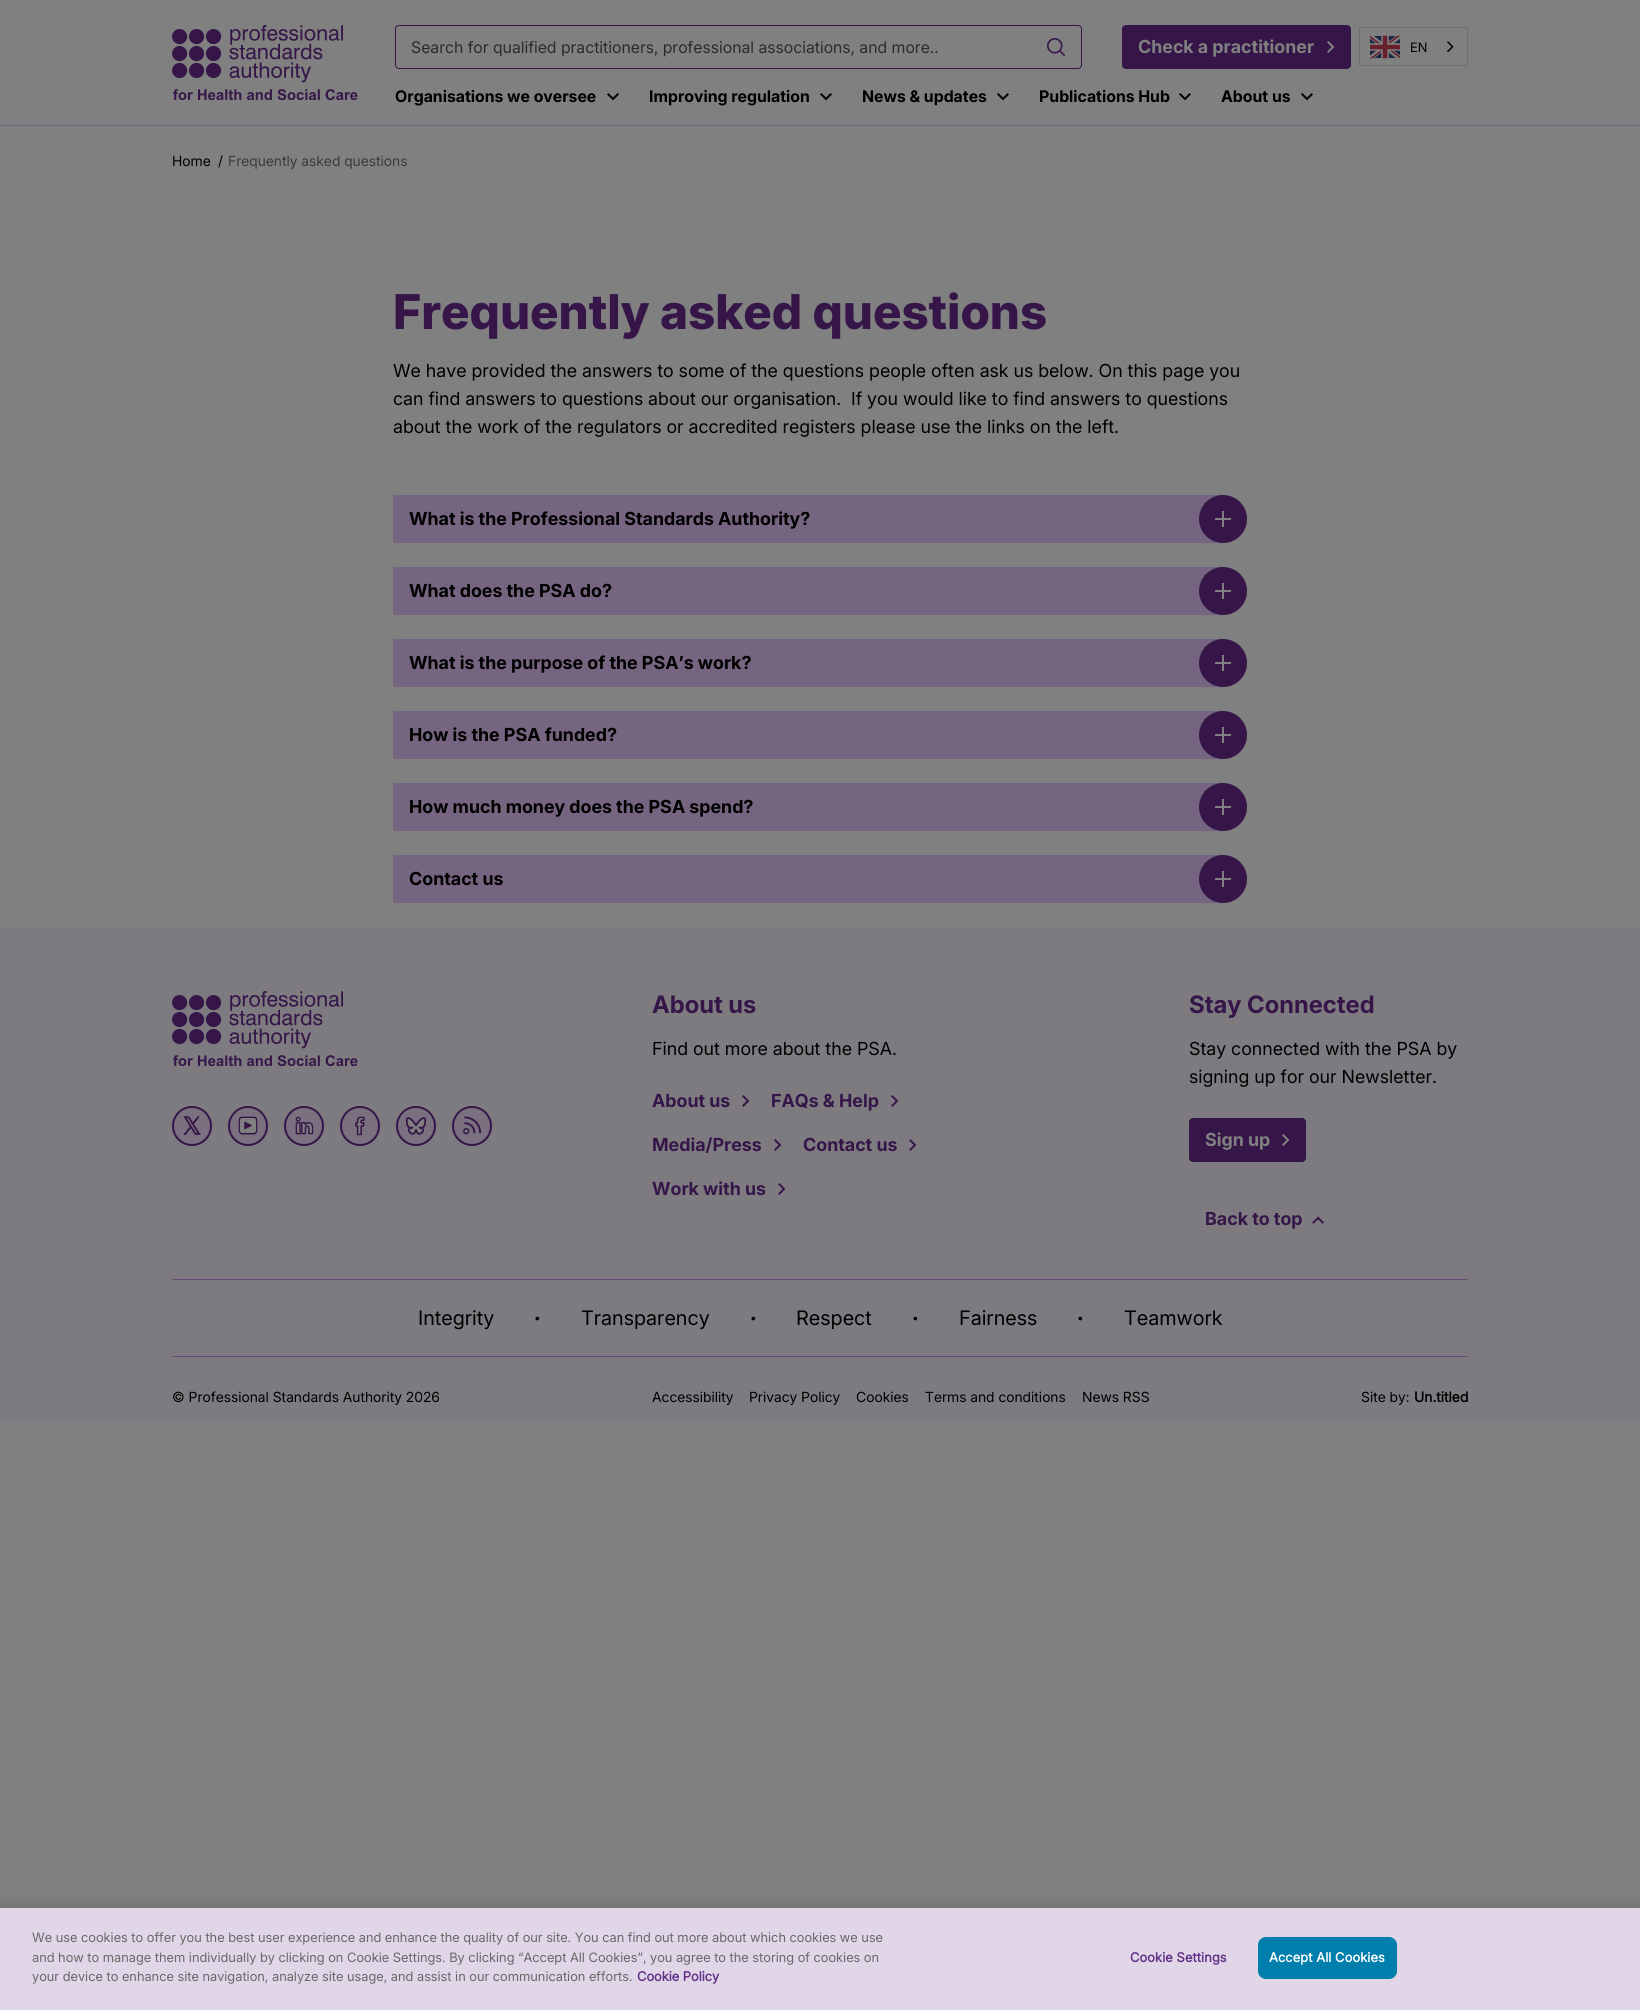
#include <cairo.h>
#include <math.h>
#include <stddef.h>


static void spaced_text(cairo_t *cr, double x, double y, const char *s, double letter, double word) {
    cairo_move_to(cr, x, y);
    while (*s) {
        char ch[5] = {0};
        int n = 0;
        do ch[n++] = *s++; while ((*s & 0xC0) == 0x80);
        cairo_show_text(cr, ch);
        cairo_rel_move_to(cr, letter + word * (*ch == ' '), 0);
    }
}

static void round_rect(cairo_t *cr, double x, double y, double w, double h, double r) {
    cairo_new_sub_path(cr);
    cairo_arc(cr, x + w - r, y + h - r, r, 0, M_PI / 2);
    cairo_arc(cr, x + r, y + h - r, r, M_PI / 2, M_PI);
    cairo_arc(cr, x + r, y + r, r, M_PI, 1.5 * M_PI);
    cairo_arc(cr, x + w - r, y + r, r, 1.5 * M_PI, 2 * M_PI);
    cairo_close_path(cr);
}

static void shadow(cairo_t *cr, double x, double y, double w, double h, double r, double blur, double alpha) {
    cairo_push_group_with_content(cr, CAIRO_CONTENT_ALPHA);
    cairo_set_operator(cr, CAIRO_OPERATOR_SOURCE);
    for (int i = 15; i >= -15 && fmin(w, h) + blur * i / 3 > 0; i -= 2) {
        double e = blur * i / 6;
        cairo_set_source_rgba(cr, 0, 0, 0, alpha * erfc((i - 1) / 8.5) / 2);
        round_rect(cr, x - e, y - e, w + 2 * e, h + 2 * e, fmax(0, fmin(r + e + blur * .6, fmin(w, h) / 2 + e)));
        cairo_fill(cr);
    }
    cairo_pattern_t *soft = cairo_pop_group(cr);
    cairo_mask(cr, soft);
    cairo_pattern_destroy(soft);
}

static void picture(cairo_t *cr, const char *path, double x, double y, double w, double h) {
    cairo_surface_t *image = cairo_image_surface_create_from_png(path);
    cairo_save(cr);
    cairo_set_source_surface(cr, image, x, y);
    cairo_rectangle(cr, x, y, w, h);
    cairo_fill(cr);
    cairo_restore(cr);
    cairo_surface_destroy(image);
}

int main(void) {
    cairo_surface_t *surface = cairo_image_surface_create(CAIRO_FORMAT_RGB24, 1640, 2010);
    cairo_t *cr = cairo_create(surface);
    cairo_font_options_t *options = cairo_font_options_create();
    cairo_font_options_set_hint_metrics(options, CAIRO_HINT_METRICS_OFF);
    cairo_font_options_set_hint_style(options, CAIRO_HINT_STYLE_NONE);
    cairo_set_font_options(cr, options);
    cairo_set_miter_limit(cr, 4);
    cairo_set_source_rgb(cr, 0.502, 0.502, 0.502);
    cairo_paint(cr);
    cairo_set_source_rgb(cr, 0.463, 0.396, 0.502);
    cairo_rectangle(cr, 0, 125, 1640, 1);
    cairo_fill(cr);
    picture(cr, "img1.png", 172, 25, 186, 75);
    picture(cr, "img2.png", 1047, 38, 18, 18);
    round_rect(cr, 395.5, 25.5, 686, 43, 3.5);
    cairo_set_source_rgb(cr, 0.212, 0.086, 0.286);
    cairo_set_line_width(cr, 1);
    cairo_stroke(cr);
    cairo_select_font_face(cr, "Inter", CAIRO_FONT_SLANT_NORMAL, CAIRO_FONT_WEIGHT_NORMAL);
    cairo_set_font_size(cr, 16);
    cairo_set_source_rgb(cr, 0.169, 0.169, 0.169);
    cairo_move_to(cr, 411, 53);
    cairo_show_text(cr, "Search for qualified practitioners, professional associations, and more..");
    cairo_set_source_rgb(cr, 0.212, 0.086, 0.286);
    round_rect(cr, 1122, 25, 229, 44, 4);
    cairo_fill(cr);
    cairo_select_font_face(cr, "Inter", CAIRO_FONT_SLANT_NORMAL, CAIRO_FONT_WEIGHT_BOLD);
    cairo_set_font_size(cr, 18);
    cairo_set_source_rgb(cr, 0.502, 0.502, 0.502);
    cairo_move_to(cr, 1138, 53);
    cairo_show_text(cr, "Check a practitioner");
    picture(cr, "img3.png", 1327, 41, 8, 12);
    cairo_rectangle(cr, 1359.5, 27.5, 108, 38);
    cairo_set_source_rgb(cr, 0.439, 0.439, 0.439);
    cairo_stroke(cr);
    picture(cr, "img4.png", 1370, 35, 30, 24);
    cairo_select_font_face(cr, "Inter", CAIRO_FONT_SLANT_NORMAL, CAIRO_FONT_WEIGHT_NORMAL);
    cairo_set_font_size(cr, 13);
    cairo_set_source_rgb(cr, 0, 0, 0);
    cairo_move_to(cr, 1410, 52);
    cairo_show_text(cr, "EN");
    picture(cr, "img5.png", 1447, 41, 7, 11);
    cairo_select_font_face(cr, "Inter", CAIRO_FONT_SLANT_NORMAL, CAIRO_FONT_WEIGHT_BOLD);
    cairo_set_font_size(cr, 16);
    cairo_move_to(cr, 395, 102);
    cairo_show_text(cr, "Organisations we oversee");
    picture(cr, "img6.png", 607, 93, 12, 8);
    cairo_move_to(cr, 649, 102);
    cairo_show_text(cr, "Improving regulation");
    picture(cr, "img6.png", 820, 93, 12, 8);
    cairo_move_to(cr, 862, 102);
    cairo_show_text(cr, "News & updates");
    picture(cr, "img6.png", 997, 93, 12, 8);
    cairo_move_to(cr, 1039, 102);
    cairo_show_text(cr, "Publications Hub");
    picture(cr, "img6.png", 1179, 93, 12, 8);
    cairo_move_to(cr, 1221, 102);
    cairo_show_text(cr, "About us");
    picture(cr, "img6.png", 1301, 93, 12, 8);
    cairo_select_font_face(cr, "Inter", CAIRO_FONT_SLANT_NORMAL, CAIRO_FONT_WEIGHT_NORMAL);
    cairo_set_font_size(cr, 14);
    cairo_move_to(cr, 172, 166);
    cairo_show_text(cr, "Home");
    cairo_move_to(cr, 218, 166);
    cairo_show_text(cr, "/");
    cairo_set_source_rgb(cr, 0.231, 0.231, 0.231);
    cairo_move_to(cr, 228, 166);
    cairo_show_text(cr, "Frequently asked questions");
    cairo_select_font_face(cr, "Inter ExtraBold", CAIRO_FONT_SLANT_NORMAL, CAIRO_FONT_WEIGHT_NORMAL);
    cairo_set_font_size(cr, 48);
    cairo_set_source_rgb(cr, 0.212, 0.086, 0.286);
    cairo_move_to(cr, 393, 329);
    cairo_show_text(cr, "Frequently asked questions");
    cairo_select_font_face(cr, "Inter", CAIRO_FONT_SLANT_NORMAL, CAIRO_FONT_WEIGHT_NORMAL);
    cairo_set_font_size(cr, 18);
    cairo_set_source_rgb(cr, 0, 0, 0);
    cairo_move_to(cr, 393, 377);
    cairo_show_text(cr, "We have provided the answers to some of the questions people often ask us below. On this page you");
    cairo_move_to(cr, 393, 405);
    cairo_show_text(cr, "can find answers to questions about our organisation.  If you would like to find answers to questions");
    cairo_move_to(cr, 393, 433);
    cairo_show_text(cr, "about the work of the regulators or accredited registers please use the links on the left.");
    cairo_set_source_rgb(cr, 0.463, 0.396, 0.502);
    cairo_new_path(cr);
    cairo_move_to(cr, 393, 495);
    cairo_line_to(cr, 1223, 495);
    cairo_curve_to(cr, 1236.5, 495, 1247, 505.5, 1247, 519);
    cairo_curve_to(cr, 1247, 532.5, 1236.5, 543, 1223, 543);
    cairo_line_to(cr, 393, 543);
    cairo_close_path(cr);
    cairo_fill(cr);
    cairo_select_font_face(cr, "Inter", CAIRO_FONT_SLANT_NORMAL, CAIRO_FONT_WEIGHT_BOLD);
    cairo_set_source_rgb(cr, 0, 0, 0);
    cairo_move_to(cr, 409, 525);
    cairo_show_text(cr, "What is the Professional Standards Authority?");
    cairo_set_source_rgb(cr, 0.212, 0.086, 0.286);
    cairo_new_path(cr);
    cairo_arc(cr, 1223, 519, 24, 0, 2 * M_PI);
    cairo_fill(cr);
    picture(cr, "img7.png", 1215, 511, 16, 16);
    cairo_set_source_rgb(cr, 0.463, 0.396, 0.502);
    cairo_new_path(cr);
    cairo_move_to(cr, 393, 567);
    cairo_line_to(cr, 1223, 567);
    cairo_curve_to(cr, 1236.5, 567, 1247, 577.5, 1247, 591);
    cairo_curve_to(cr, 1247, 604.5, 1236.5, 615, 1223, 615);
    cairo_line_to(cr, 393, 615);
    cairo_close_path(cr);
    cairo_fill(cr);
    cairo_set_source_rgb(cr, 0, 0, 0);
    cairo_move_to(cr, 409, 597);
    cairo_show_text(cr, "What does the PSA do?");
    cairo_set_source_rgb(cr, 0.212, 0.086, 0.286);
    cairo_new_path(cr);
    cairo_arc(cr, 1223, 591, 24, 0, 2 * M_PI);
    cairo_fill(cr);
    picture(cr, "img7.png", 1215, 583, 16, 16);
    cairo_set_source_rgb(cr, 0.463, 0.396, 0.502);
    cairo_new_path(cr);
    cairo_move_to(cr, 393, 639);
    cairo_line_to(cr, 1223, 639);
    cairo_curve_to(cr, 1236.5, 639, 1247, 649.5, 1247, 663);
    cairo_curve_to(cr, 1247, 676.5, 1236.5, 687, 1223, 687);
    cairo_line_to(cr, 393, 687);
    cairo_close_path(cr);
    cairo_fill(cr);
    cairo_set_source_rgb(cr, 0, 0, 0);
    cairo_move_to(cr, 409, 669);
    cairo_show_text(cr, "What is the purpose of the PSA’s work?");
    cairo_set_source_rgb(cr, 0.212, 0.086, 0.286);
    cairo_new_path(cr);
    cairo_arc(cr, 1223, 663, 24, 0, 2 * M_PI);
    cairo_fill(cr);
    picture(cr, "img7.png", 1215, 655, 16, 16);
    cairo_set_source_rgb(cr, 0.463, 0.396, 0.502);
    cairo_new_path(cr);
    cairo_move_to(cr, 393, 711);
    cairo_line_to(cr, 1223, 711);
    cairo_curve_to(cr, 1236.5, 711, 1247, 721.5, 1247, 735);
    cairo_curve_to(cr, 1247, 748.5, 1236.5, 759, 1223, 759);
    cairo_line_to(cr, 393, 759);
    cairo_close_path(cr);
    cairo_fill(cr);
    cairo_set_source_rgb(cr, 0, 0, 0);
    cairo_move_to(cr, 409, 741);
    cairo_show_text(cr, "How is the PSA funded?");
    cairo_set_source_rgb(cr, 0.212, 0.086, 0.286);
    cairo_new_path(cr);
    cairo_arc(cr, 1223, 735, 24, 0, 2 * M_PI);
    cairo_fill(cr);
    picture(cr, "img7.png", 1215, 727, 16, 16);
    cairo_set_source_rgb(cr, 0.463, 0.396, 0.502);
    cairo_new_path(cr);
    cairo_move_to(cr, 393, 783);
    cairo_line_to(cr, 1223, 783);
    cairo_curve_to(cr, 1236.5, 783, 1247, 793.5, 1247, 807);
    cairo_curve_to(cr, 1247, 820.5, 1236.5, 831, 1223, 831);
    cairo_line_to(cr, 393, 831);
    cairo_close_path(cr);
    cairo_fill(cr);
    cairo_set_source_rgb(cr, 0, 0, 0);
    cairo_move_to(cr, 409, 813);
    cairo_show_text(cr, "How much money does the PSA spend?");
    cairo_set_source_rgb(cr, 0.212, 0.086, 0.286);
    cairo_new_path(cr);
    cairo_arc(cr, 1223, 807, 24, 0, 2 * M_PI);
    cairo_fill(cr);
    picture(cr, "img7.png", 1215, 799, 16, 16);
    cairo_set_source_rgb(cr, 0.463, 0.396, 0.502);
    cairo_new_path(cr);
    cairo_move_to(cr, 393, 855);
    cairo_line_to(cr, 1223, 855);
    cairo_curve_to(cr, 1236.5, 855, 1247, 865.5, 1247, 879);
    cairo_curve_to(cr, 1247, 892.5, 1236.5, 903, 1223, 903);
    cairo_line_to(cr, 393, 903);
    cairo_close_path(cr);
    cairo_fill(cr);
    cairo_set_source_rgb(cr, 0, 0, 0);
    cairo_move_to(cr, 409, 885);
    cairo_show_text(cr, "Contact us");
    cairo_set_source_rgb(cr, 0.212, 0.086, 0.286);
    cairo_new_path(cr);
    cairo_arc(cr, 1223, 879, 24, 0, 2 * M_PI);
    cairo_fill(cr);
    picture(cr, "img7.png", 1215, 871, 16, 16);
    cairo_set_source_rgb(cr, 0.494, 0.482, 0.502);
    cairo_rectangle(cr, 0, 927, 1640, 495);
    cairo_fill(cr);
    picture(cr, "img8.png", 172, 991, 186, 75);
    cairo_set_source_rgb(cr, 0.478, 0.439, 0.502);
    cairo_arc(cr, 192, 1126, 19, 0, 2 * M_PI);
    cairo_fill_preserve(cr);
    cairo_set_source_rgb(cr, 0.212, 0.086, 0.286);
    cairo_set_line_width(cr, 2);
    cairo_stroke(cr);
    picture(cr, "img9.png", 183, 1116, 18, 20);
    cairo_set_source_rgb(cr, 0.478, 0.439, 0.502);
    cairo_arc(cr, 248, 1126, 19, 0, 2 * M_PI);
    cairo_fill_preserve(cr);
    cairo_set_source_rgb(cr, 0.212, 0.086, 0.286);
    cairo_stroke(cr);
    picture(cr, "img10.png", 238, 1116, 20, 19);
    cairo_set_source_rgb(cr, 0.478, 0.439, 0.502);
    cairo_arc(cr, 304, 1126, 19, 0, 2 * M_PI);
    cairo_fill_preserve(cr);
    cairo_set_source_rgb(cr, 0.212, 0.086, 0.286);
    cairo_stroke(cr);
    picture(cr, "img11.png", 295, 1116, 19, 19);
    cairo_set_source_rgb(cr, 0.478, 0.439, 0.502);
    cairo_arc(cr, 360, 1126, 19, 0, 2 * M_PI);
    cairo_fill_preserve(cr);
    cairo_set_source_rgb(cr, 0.212, 0.086, 0.286);
    cairo_stroke(cr);
    picture(cr, "img12.png", 355, 1116, 10, 20);
    cairo_set_source_rgb(cr, 0.478, 0.439, 0.502);
    cairo_arc(cr, 416, 1126, 19, 0, 2 * M_PI);
    cairo_fill_preserve(cr);
    cairo_set_source_rgb(cr, 0.212, 0.086, 0.286);
    cairo_stroke(cr);
    picture(cr, "img13.png", 406, 1117, 20, 18);
    cairo_set_source_rgb(cr, 0.478, 0.439, 0.502);
    cairo_arc(cr, 472, 1126, 19, 0, 2 * M_PI);
    cairo_fill_preserve(cr);
    cairo_set_source_rgb(cr, 0.212, 0.086, 0.286);
    cairo_stroke(cr);
    picture(cr, "img14.png", 463, 1116, 19, 19);
    cairo_set_font_size(cr, 24);
    cairo_move_to(cr, 652, 1013);
    cairo_show_text(cr, "About us");
    cairo_select_font_face(cr, "Inter", CAIRO_FONT_SLANT_NORMAL, CAIRO_FONT_WEIGHT_NORMAL);
    cairo_set_font_size(cr, 18);
    cairo_set_source_rgb(cr, 0, 0, 0);
    cairo_move_to(cr, 652, 1055);
    cairo_show_text(cr, "Find out more about the PSA.");
    cairo_select_font_face(cr, "Inter", CAIRO_FONT_SLANT_NORMAL, CAIRO_FONT_WEIGHT_BOLD);
    cairo_set_source_rgb(cr, 0.212, 0.086, 0.286);
    cairo_move_to(cr, 652, 1107);
    cairo_show_text(cr, "About us");
    picture(cr, "img15.png", 742, 1095, 8, 12);
    cairo_move_to(cr, 771, 1107);
    cairo_show_text(cr, "FAQs & Help");
    picture(cr, "img15.png", 891, 1095, 8, 12);
    cairo_move_to(cr, 652, 1151);
    cairo_show_text(cr, "Media/Press");
    picture(cr, "img15.png", 774, 1139, 8, 12);
    cairo_move_to(cr, 803, 1151);
    cairo_show_text(cr, "Contact us");
    picture(cr, "img15.png", 909, 1139, 8, 12);
    cairo_move_to(cr, 652, 1195);
    cairo_show_text(cr, "Work with us");
    picture(cr, "img15.png", 778, 1183, 8, 12);
    cairo_set_font_size(cr, 24);
    cairo_move_to(cr, 1189, 1013);
    cairo_show_text(cr, "Stay Connected");
    cairo_select_font_face(cr, "Inter", CAIRO_FONT_SLANT_NORMAL, CAIRO_FONT_WEIGHT_NORMAL);
    cairo_set_font_size(cr, 18);
    cairo_set_source_rgb(cr, 0, 0, 0);
    cairo_move_to(cr, 1189, 1055);
    cairo_show_text(cr, "Stay connected with the PSA by");
    cairo_move_to(cr, 1189, 1083);
    cairo_show_text(cr, "signing up for our Newsletter.");
    cairo_set_source_rgb(cr, 0.212, 0.086, 0.286);
    round_rect(cr, 1189, 1118, 117, 44, 4);
    cairo_fill(cr);
    cairo_select_font_face(cr, "Inter", CAIRO_FONT_SLANT_NORMAL, CAIRO_FONT_WEIGHT_BOLD);
    cairo_set_source_rgb(cr, 0.502, 0.502, 0.502);
    cairo_move_to(cr, 1205, 1146);
    cairo_show_text(cr, "Sign up");
    picture(cr, "img3.png", 1282, 1134, 8, 12);
    cairo_set_source_rgb(cr, 0.212, 0.086, 0.286);
    cairo_move_to(cr, 1205, 1225);
    cairo_show_text(cr, "Back to top");
    picture(cr, "img16.png", 1312, 1216, 12, 8);
    cairo_set_source_rgb(cr, 0.408, 0.298, 0.471);
    cairo_rectangle(cr, 172, 1279, 1296, 1);
    cairo_fill(cr);
    cairo_rectangle(cr, 172, 1356, 1296, 1);
    cairo_fill(cr);
    cairo_select_font_face(cr, "Inter", CAIRO_FONT_SLANT_NORMAL, CAIRO_FONT_WEIGHT_NORMAL);
    cairo_set_font_size(cr, 20);
    cairo_set_source_rgb(cr, 0, 0, 0);
    cairo_move_to(cr, 418, 1325);
    cairo_show_text(cr, "Integrity");
    cairo_set_font_size(cr, 12);
    cairo_move_to(cr, 534, 1322);
    cairo_show_text(cr, "•");
    cairo_set_font_size(cr, 20);
    cairo_move_to(cr, 581, 1325);
    cairo_show_text(cr, "Transparency");
    cairo_set_font_size(cr, 12);
    cairo_move_to(cr, 750, 1322);
    cairo_show_text(cr, "•");
    cairo_set_font_size(cr, 20);
    cairo_move_to(cr, 796, 1325);
    cairo_show_text(cr, "Respect");
    cairo_set_font_size(cr, 12);
    cairo_move_to(cr, 912, 1322);
    cairo_show_text(cr, "•");
    cairo_set_font_size(cr, 20);
    cairo_move_to(cr, 959, 1325);
    cairo_show_text(cr, "Fairness");
    cairo_set_font_size(cr, 12);
    cairo_move_to(cr, 1077, 1322);
    cairo_show_text(cr, "•");
    cairo_set_font_size(cr, 20);
    cairo_move_to(cr, 1124, 1325);
    cairo_show_text(cr, "Teamwork");
    cairo_set_font_size(cr, 14);
    cairo_move_to(cr, 172, 1402);
    cairo_show_text(cr, "© Professional Standards Authority 2026");
    cairo_move_to(cr, 652, 1402);
    cairo_show_text(cr, "Accessibility");
    cairo_move_to(cr, 749, 1402);
    cairo_show_text(cr, "Privacy Policy");
    cairo_move_to(cr, 856, 1402);
    cairo_show_text(cr, "Cookies");
    cairo_move_to(cr, 925, 1402);
    cairo_show_text(cr, "Terms and conditions");
    cairo_move_to(cr, 1082, 1402);
    cairo_show_text(cr, "News RSS");
    cairo_move_to(cr, 1361, 1402);
    cairo_show_text(cr, "Site by:");
    cairo_select_font_face(cr, "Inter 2", CAIRO_FONT_SLANT_NORMAL, CAIRO_FONT_WEIGHT_BOLD);
    cairo_move_to(cr, 1414, 1402);
    cairo_show_text(cr, "Un.titled");
    cairo_set_source_rgb(cr, 0, 0, 0);
    shadow(cr, 0, 1908, 1640, 102, 0, 9, 0.2);
    cairo_set_source_rgb(cr, 0.878, 0.839, 0.906);
    cairo_rectangle(cr, 0, 1908, 1640, 102);
    cairo_fill(cr);
    cairo_select_font_face(cr, "Inter", CAIRO_FONT_SLANT_NORMAL, CAIRO_FONT_WEIGHT_NORMAL);
    cairo_set_font_size(cr, 13);
    cairo_set_source_rgb(cr, 0.412, 0.412, 0.412);
    cairo_move_to(cr, 32, 1942);
    cairo_show_text(cr, "We use cookies to offer you the best user experience and enhance the quality of our site. You can find out more about which cookies we use");
    cairo_move_to(cr, 32, 1962);
    cairo_show_text(cr, "and how to manage them individually by clicking on Cookie Settings. By clicking “Accept All Cookies”, you agree to the storing of cookies on");
    cairo_move_to(cr, 32, 1981);
    cairo_show_text(cr, "your device to enhance site navigation, analyze site usage, and assist in our communication efforts.");
    cairo_select_font_face(cr, "Inter 2", CAIRO_FONT_SLANT_NORMAL, CAIRO_FONT_WEIGHT_BOLD);
    cairo_set_source_rgb(cr, 0.384, 0.192, 0.533);
    cairo_move_to(cr, 637, 1981);
    cairo_show_text(cr, "Cookie Policy");
    spaced_text(cr, 1130, 1962, "Cookie Settings", 0.1, 0);
    cairo_set_source_rgb(cr, 0, 0.498, 0.678);
    round_rect(cr, 1258.5, 1937.5, 138, 41, 7.5);
    cairo_fill_preserve(cr);
    cairo_set_line_width(cr, 1);
    cairo_stroke(cr);
    cairo_set_source_rgb(cr, 1, 1, 1);
    spaced_text(cr, 1269, 1962, "Accept All Cookies", 0.1, 0);
    cairo_surface_write_to_png(surface, "page.png");
    cairo_font_options_destroy(options);
    cairo_destroy(cr);
    cairo_surface_destroy(surface);
    return 0;
}
